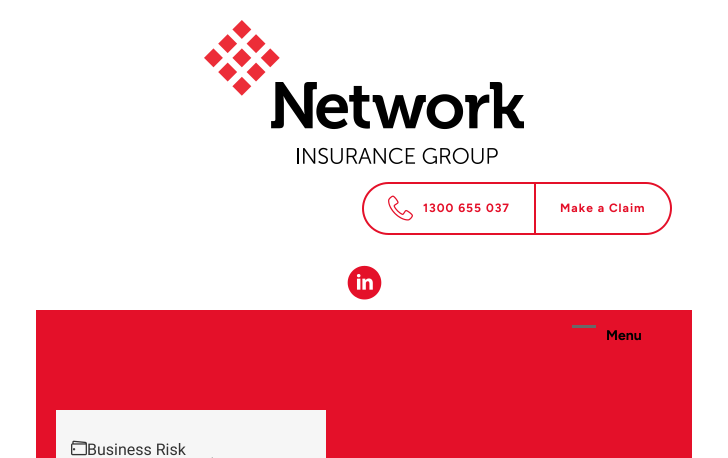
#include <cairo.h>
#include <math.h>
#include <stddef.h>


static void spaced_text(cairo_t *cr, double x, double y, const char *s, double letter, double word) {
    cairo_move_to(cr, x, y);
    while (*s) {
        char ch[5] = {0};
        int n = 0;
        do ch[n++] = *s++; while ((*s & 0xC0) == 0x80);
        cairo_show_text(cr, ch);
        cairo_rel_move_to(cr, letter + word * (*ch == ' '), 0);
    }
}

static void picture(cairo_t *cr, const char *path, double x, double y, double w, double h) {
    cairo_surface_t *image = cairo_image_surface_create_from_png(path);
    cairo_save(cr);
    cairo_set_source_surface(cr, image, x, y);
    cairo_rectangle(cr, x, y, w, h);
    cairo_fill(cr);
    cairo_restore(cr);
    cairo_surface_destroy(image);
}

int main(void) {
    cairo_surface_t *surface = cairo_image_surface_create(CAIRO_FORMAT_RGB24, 728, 458);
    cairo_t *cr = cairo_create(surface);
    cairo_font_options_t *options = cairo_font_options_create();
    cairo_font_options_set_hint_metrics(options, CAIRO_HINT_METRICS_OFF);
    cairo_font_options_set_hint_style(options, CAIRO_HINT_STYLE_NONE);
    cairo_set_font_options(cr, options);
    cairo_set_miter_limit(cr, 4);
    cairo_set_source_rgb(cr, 1, 1, 1);
    cairo_paint(cr);
    picture(cr, "img1.png", 204, 20, 320, 144);
    cairo_new_path(cr);
    cairo_move_to(cr, 388.5, 183);
    cairo_line_to(cr, 535, 183);
    cairo_line_to(cr, 535, 234);
    cairo_line_to(cr, 388.5, 234);
    cairo_curve_to(cr, 374.5, 234, 363, 222.5, 363, 208.5);
    cairo_curve_to(cr, 363, 194.5, 374.5, 183, 388.5, 183);
    cairo_close_path(cr);
    cairo_set_source_rgb(cr, 0.894, 0.063, 0.161);
    cairo_stroke(cr);
    picture(cr, "img2.png", 388, 195, 25, 26);
    cairo_select_font_face(cr, "Figtree Light", CAIRO_FONT_SLANT_NORMAL, CAIRO_FONT_WEIGHT_NORMAL);
    cairo_set_font_size(cr, 12);
    spaced_text(cr, 423, 212, "1300 655 037", 1, 0);
    cairo_set_fill_rule(cr, CAIRO_FILL_RULE_EVEN_ODD);
    cairo_new_path(cr);
    cairo_move_to(cr, 536, 182);
    cairo_line_to(cr, 646, 182);
    cairo_curve_to(cr, 660, 182, 672, 194, 672, 208);
    cairo_curve_to(cr, 672, 223, 660, 235, 646, 235);
    cairo_line_to(cr, 536, 235);
    cairo_close_path(cr);
    cairo_move_to(cr, 536, 184);
    cairo_line_to(cr, 646, 184);
    cairo_curve_to(cr, 659, 184, 670, 195, 670, 208);
    cairo_curve_to(cr, 670, 222, 659, 233, 646, 233);
    cairo_line_to(cr, 536, 233);
    cairo_close_path(cr);
    cairo_fill(cr);
    spaced_text(cr, 560, 212, "Make a Claim", 1, 0);
    picture(cr, "img3.png", 347, 265, 35, 35);
    cairo_rectangle(cr, 36, 310, 656, 148);
    cairo_fill(cr);
    cairo_set_source_rgb(cr, 0.408, 0.408, 0.408);
    cairo_rectangle(cr, 572, 325, 24, 3);
    cairo_fill(cr);
    cairo_set_font_size(cr, 14);
    cairo_set_source_rgb(cr, 0, 0, 0);
    cairo_move_to(cr, 606, 340);
    cairo_show_text(cr, "Menu");
    cairo_set_source_rgb(cr, 0.961, 0.961, 0.961);
    cairo_rectangle(cr, 56, 410, 270, 48);
    cairo_fill(cr);
    picture(cr, "img4.png", 71, 440, 16, 16);
    cairo_select_font_face(cr, "Roboto", CAIRO_FONT_SLANT_NORMAL, CAIRO_FONT_WEIGHT_NORMAL);
    cairo_set_font_size(cr, 16);
    cairo_set_source_rgb(cr, 0.2, 0.2, 0.2);
    cairo_move_to(cr, 87, 455);
    cairo_show_text(cr, "Business Risk");
    picture(cr, "img5.png", 211, 457, 2, 1);
    cairo_surface_write_to_png(surface, "page.png");
    cairo_font_options_destroy(options);
    cairo_destroy(cr);
    cairo_surface_destroy(surface);
    return 0;
}
